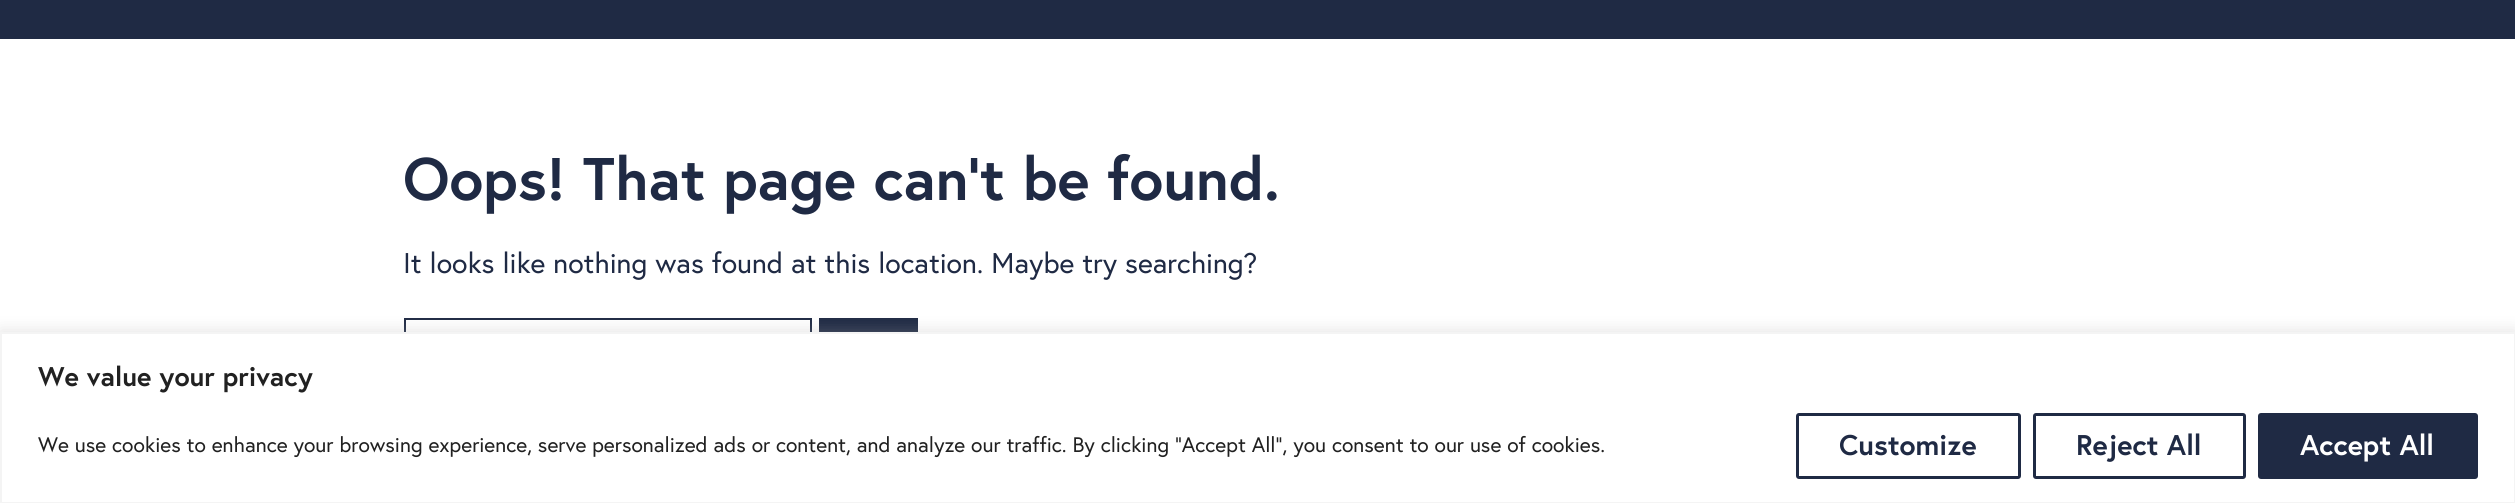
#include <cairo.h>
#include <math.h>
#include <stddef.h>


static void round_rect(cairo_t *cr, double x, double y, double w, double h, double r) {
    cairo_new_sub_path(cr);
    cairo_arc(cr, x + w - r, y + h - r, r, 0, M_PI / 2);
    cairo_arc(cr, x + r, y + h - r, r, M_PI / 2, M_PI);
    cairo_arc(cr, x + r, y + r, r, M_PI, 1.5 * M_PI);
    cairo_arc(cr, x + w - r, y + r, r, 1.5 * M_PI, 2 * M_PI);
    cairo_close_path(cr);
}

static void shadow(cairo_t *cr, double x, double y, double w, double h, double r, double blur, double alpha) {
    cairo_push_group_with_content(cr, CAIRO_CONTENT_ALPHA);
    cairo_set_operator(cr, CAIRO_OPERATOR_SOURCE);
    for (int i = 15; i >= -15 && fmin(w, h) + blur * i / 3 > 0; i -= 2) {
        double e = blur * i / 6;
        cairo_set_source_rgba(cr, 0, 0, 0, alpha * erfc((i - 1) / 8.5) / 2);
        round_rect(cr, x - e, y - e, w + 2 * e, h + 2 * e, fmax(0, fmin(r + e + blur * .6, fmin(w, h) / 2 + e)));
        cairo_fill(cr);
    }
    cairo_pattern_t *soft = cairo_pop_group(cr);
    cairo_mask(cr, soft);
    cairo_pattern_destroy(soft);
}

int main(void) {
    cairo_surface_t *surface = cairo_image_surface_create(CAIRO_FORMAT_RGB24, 2515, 503);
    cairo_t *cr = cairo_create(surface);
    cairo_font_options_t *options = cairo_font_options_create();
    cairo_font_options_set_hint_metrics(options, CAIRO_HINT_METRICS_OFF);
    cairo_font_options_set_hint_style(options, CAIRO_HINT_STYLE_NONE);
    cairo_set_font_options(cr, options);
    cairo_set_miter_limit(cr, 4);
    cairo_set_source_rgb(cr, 1, 1, 1);
    cairo_paint(cr);
    cairo_set_source_rgb(cr, 0.122, 0.165, 0.267);
    cairo_rectangle(cr, 0, 0, 2515, 39);
    cairo_fill(cr);
    cairo_select_font_face(cr, "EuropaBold", CAIRO_FONT_SLANT_NORMAL, CAIRO_FONT_WEIGHT_BOLD);
    cairo_set_font_size(cr, 60);
    cairo_move_to(cr, 403, 200);
    cairo_show_text(cr, "Oops! That page can’t be found.");
    cairo_select_font_face(cr, "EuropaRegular", CAIRO_FONT_SLANT_NORMAL, CAIRO_FONT_WEIGHT_NORMAL);
    cairo_set_font_size(cr, 28.5);
    cairo_move_to(cr, 403, 273);
    cairo_show_text(cr, "It looks like nothing was found at this location. Maybe try searching?");
    cairo_rectangle(cr, 405, 319, 406, 75);
    cairo_stroke(cr);
    cairo_rectangle(cr, 819, 318, 99, 14);
    cairo_fill(cr);
    cairo_set_source_rgb(cr, 0.675, 0.671, 0.671);
    shadow(cr, 0, 330, 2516, 173, 0, 7.5, 0.3);
    cairo_set_source_rgb(cr, 1, 1, 1);
    cairo_rectangle(cr, 1, 333, 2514, 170);
    cairo_fill_preserve(cr);
    cairo_set_source_rgb(cr, 0.957, 0.957, 0.957);
    cairo_stroke(cr);
    cairo_select_font_face(cr, "EuropaBold", CAIRO_FONT_SLANT_NORMAL, CAIRO_FONT_WEIGHT_BOLD);
    cairo_set_font_size(cr, 27);
    cairo_set_source_rgb(cr, 0.129, 0.129, 0.129);
    cairo_move_to(cr, 38, 386);
    cairo_show_text(cr, "We value your privacy");
    cairo_select_font_face(cr, "EuropaRegular", CAIRO_FONT_SLANT_NORMAL, CAIRO_FONT_WEIGHT_NORMAL);
    cairo_set_font_size(cr, 21);
    cairo_move_to(cr, 38, 452);
    cairo_show_text(cr, "We use cookies to enhance your browsing experience, serve personalized ads or content, and analyze our traffic. By clicking \"Accept All\", you consent to our use of cookies.");
    round_rect(cr, 1797.5, 414.5, 222, 63, 1.5);
    cairo_set_source_rgb(cr, 0.122, 0.165, 0.267);
    cairo_set_line_width(cr, 3);
    cairo_stroke(cr);
    cairo_select_font_face(cr, "EuropaBold", CAIRO_FONT_SLANT_NORMAL, CAIRO_FONT_WEIGHT_BOLD);
    cairo_set_font_size(cr, 28.5);
    cairo_move_to(cr, 1839, 455);
    cairo_show_text(cr, "Customize");
    round_rect(cr, 2034.5, 414.5, 210, 63, 1.5);
    cairo_stroke(cr);
    cairo_move_to(cr, 2076, 455);
    cairo_show_text(cr, "Reject All");
    round_rect(cr, 2259.5, 414.5, 217, 63, 1.5);
    cairo_fill_preserve(cr);
    cairo_stroke(cr);
    cairo_set_source_rgb(cr, 1, 1, 1);
    cairo_move_to(cr, 2300, 455);
    cairo_show_text(cr, "Accept All");
    cairo_surface_write_to_png(surface, "page.png");
    cairo_font_options_destroy(options);
    cairo_destroy(cr);
    cairo_surface_destroy(surface);
    return 0;
}
